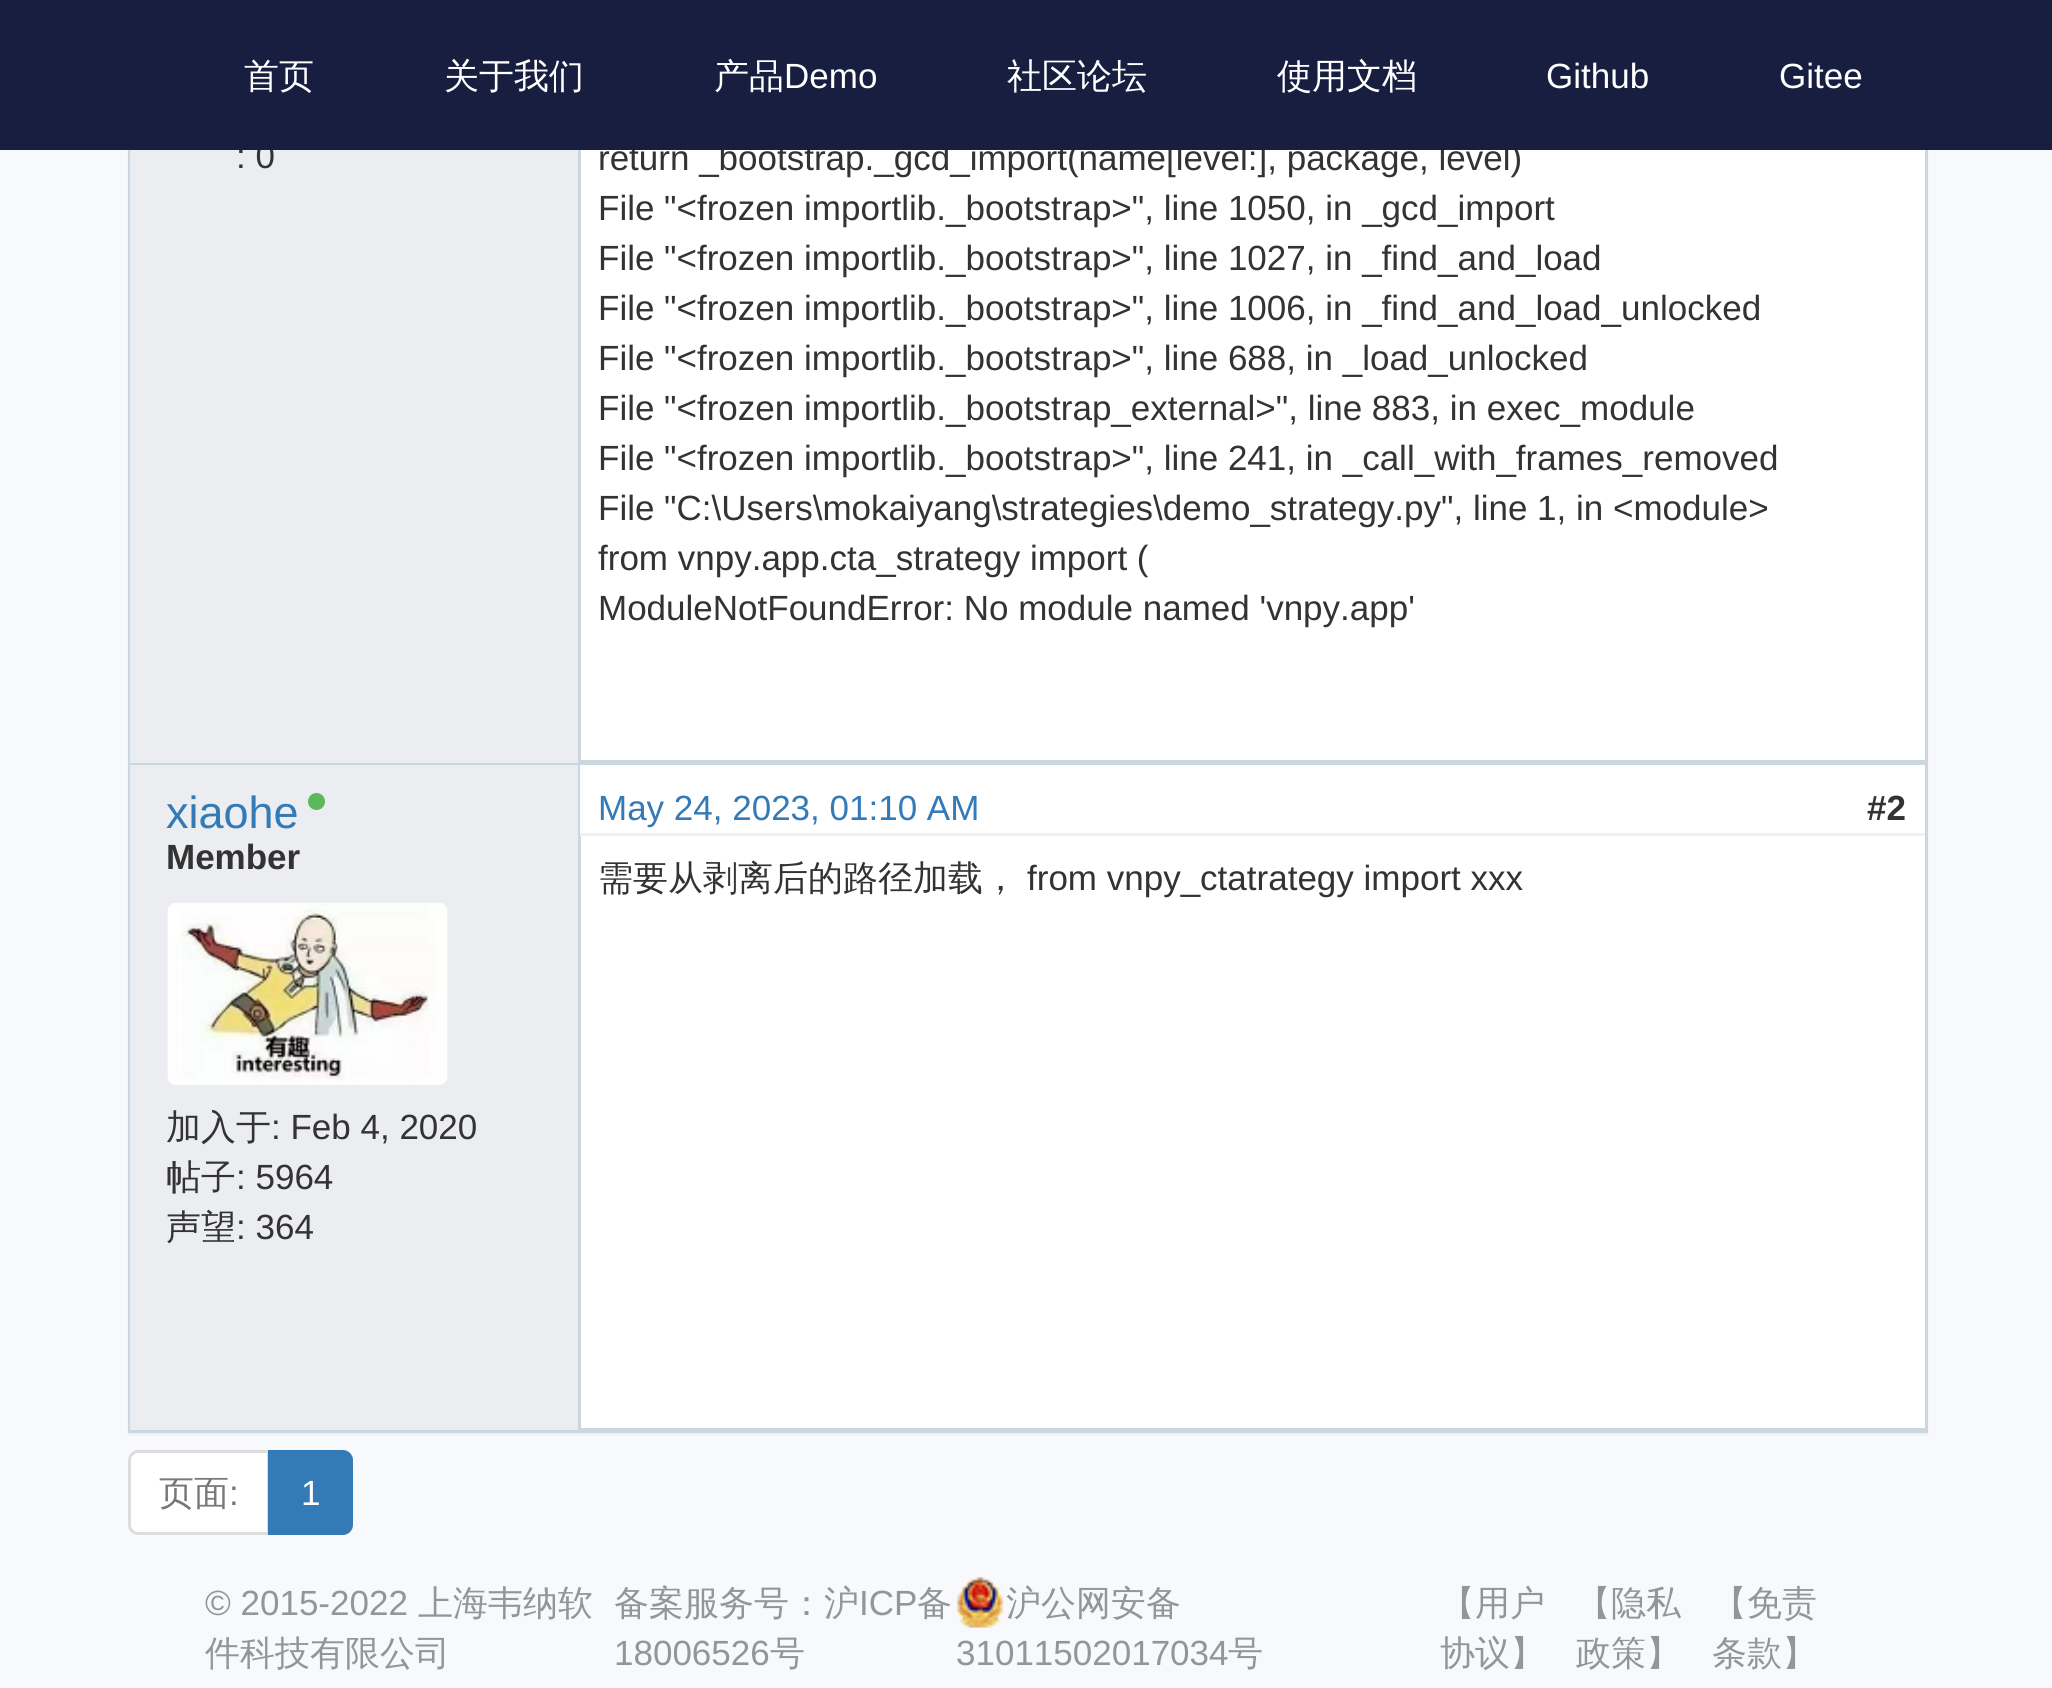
#include <cairo.h>
#include <math.h>
#include <stddef.h>


static void round_rect(cairo_t *cr, double x, double y, double w, double h, double r) {
    cairo_new_sub_path(cr);
    cairo_arc(cr, x + w - r, y + h - r, r, 0, M_PI / 2);
    cairo_arc(cr, x + r, y + h - r, r, M_PI / 2, M_PI);
    cairo_arc(cr, x + r, y + r, r, M_PI, 1.5 * M_PI);
    cairo_arc(cr, x + w - r, y + r, r, 1.5 * M_PI, 2 * M_PI);
    cairo_close_path(cr);
}

static void shadow(cairo_t *cr, double x, double y, double w, double h, double r, double blur, double alpha) {
    cairo_push_group_with_content(cr, CAIRO_CONTENT_ALPHA);
    cairo_set_operator(cr, CAIRO_OPERATOR_SOURCE);
    for (int i = 15; i >= -15 && fmin(w, h) + blur * i / 3 > 0; i -= 2) {
        double e = blur * i / 6;
        cairo_set_source_rgba(cr, 0, 0, 0, alpha * erfc((i - 1) / 8.5) / 2);
        round_rect(cr, x - e, y - e, w + 2 * e, h + 2 * e, fmax(0, fmin(r + e + blur * .6, fmin(w, h) / 2 + e)));
        cairo_fill(cr);
    }
    cairo_pattern_t *soft = cairo_pop_group(cr);
    cairo_mask(cr, soft);
    cairo_pattern_destroy(soft);
}

static void picture(cairo_t *cr, const char *path, double x, double y, double w, double h) {
    cairo_surface_t *image = cairo_image_surface_create_from_png(path);
    cairo_save(cr);
    cairo_set_source_surface(cr, image, x, y);
    cairo_rectangle(cr, x, y, w, h);
    cairo_fill(cr);
    cairo_restore(cr);
    cairo_surface_destroy(image);
}

int main(void) {
    cairo_surface_t *surface = cairo_image_surface_create(CAIRO_FORMAT_RGB24, 2052, 1688);
    cairo_t *cr = cairo_create(surface);
    cairo_font_options_t *options = cairo_font_options_create();
    cairo_font_options_set_hint_metrics(options, CAIRO_HINT_METRICS_OFF);
    cairo_font_options_set_hint_style(options, CAIRO_HINT_STYLE_NONE);
    cairo_set_font_options(cr, options);
    cairo_set_miter_limit(cr, 4);
    cairo_set_source_rgb(cr, 0.965, 0.976, 0.988);
    cairo_paint(cr);
    cairo_set_source_rgb(cr, 0, 0, 0);
    shadow(cr, 128, -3, 1800, 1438, 0, 1, 0.05);
    cairo_rectangle(cr, 129.5, -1.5, 1797, 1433);
    cairo_set_source_rgb(cr, 0.792, 0.843, 0.882);
    cairo_set_line_width(cr, 3);
    cairo_stroke(cr);
    cairo_select_font_face(cr, "Liberation Sans", CAIRO_FONT_SLANT_NORMAL, CAIRO_FONT_WEIGHT_NORMAL);
    cairo_set_font_size(cr, 35);
    cairo_set_source_rgb(cr, 0.2, 0.2, 0.2);
    cairo_move_to(cr, 236, 168);
    cairo_show_text(cr, ": 0");
    cairo_set_source_rgb(cr, 1, 1, 1);
    cairo_rectangle(cr, 581, 150, 1344, 610);
    cairo_fill(cr);
    cairo_set_source_rgb(cr, 0.2, 0.2, 0.2);
    cairo_move_to(cr, 598, 170);
    cairo_show_text(cr, "return _bootstrap._gcd_import(name[level:], package, level)");
    cairo_set_source_rgb(cr, 0.09, 0.118, 0.251);
    cairo_rectangle(cr, 0, 0, 2052, 150);
    cairo_fill(cr);
    cairo_select_font_face(cr, "WenQuanYi Zen Hei Medium", CAIRO_FONT_SLANT_NORMAL, CAIRO_FONT_WEIGHT_NORMAL);
    cairo_set_source_rgb(cr, 1, 1, 1);
    cairo_move_to(cr, 244, 88);
    cairo_show_text(cr, "首页");
    cairo_move_to(cr, 444, 88);
    cairo_show_text(cr, "关于我们");
    cairo_move_to(cr, 714, 88);
    cairo_show_text(cr, "产品");
    cairo_select_font_face(cr, "Liberation Sans", CAIRO_FONT_SLANT_NORMAL, CAIRO_FONT_WEIGHT_NORMAL);
    cairo_move_to(cr, 784, 88);
    cairo_show_text(cr, "Demo");
    cairo_select_font_face(cr, "WenQuanYi Zen Hei Medium", CAIRO_FONT_SLANT_NORMAL, CAIRO_FONT_WEIGHT_NORMAL);
    cairo_move_to(cr, 1007, 88);
    cairo_show_text(cr, "社区论坛");
    cairo_move_to(cr, 1277, 88);
    cairo_show_text(cr, "使用文档");
    cairo_select_font_face(cr, "Liberation Sans", CAIRO_FONT_SLANT_NORMAL, CAIRO_FONT_WEIGHT_NORMAL);
    cairo_move_to(cr, 1546, 88);
    cairo_show_text(cr, "Github");
    cairo_move_to(cr, 1779, 88);
    cairo_show_text(cr, "Gitee");
    cairo_set_source_rgb(cr, 0.91, 0.925, 0.945);
    cairo_rectangle(cr, 130, 150, 1, 613);
    cairo_fill(cr);
    cairo_set_source_rgb(cr, 0.792, 0.843, 0.882);
    cairo_rectangle(cr, 130, 763, 1795, 2);
    cairo_fill(cr);
    cairo_rectangle(cr, 578, 150, 3, 613);
    cairo_fill(cr);
    cairo_set_source_rgb(cr, 0.2, 0.2, 0.2);
    cairo_move_to(cr, 598, 220);
    cairo_show_text(cr, "File \"<frozen importlib._bootstrap>\", line 1050, in _gcd_import");
    cairo_move_to(cr, 598, 270);
    cairo_show_text(cr, "File \"<frozen importlib._bootstrap>\", line 1027, in _find_and_load");
    cairo_move_to(cr, 598, 320);
    cairo_show_text(cr, "File \"<frozen importlib._bootstrap>\", line 1006, in _find_and_load_unlocked");
    cairo_move_to(cr, 598, 370);
    cairo_show_text(cr, "File \"<frozen importlib._bootstrap>\", line 688, in _load_unlocked");
    cairo_move_to(cr, 598, 420);
    cairo_show_text(cr, "File \"<frozen importlib._bootstrap_external>\", line 883, in exec_module");
    cairo_move_to(cr, 598, 470);
    cairo_show_text(cr, "File \"<frozen importlib._bootstrap>\", line 241, in _call_with_frames_removed");
    cairo_move_to(cr, 598, 520);
    cairo_show_text(cr, "File \"C:\\Users\\mokaiyang\\strategies\\demo_strategy.py\", line 1, in <module>");
    cairo_move_to(cr, 598, 570);
    cairo_show_text(cr, "from vnpy.app.cta_strategy import (");
    cairo_move_to(cr, 598, 620);
    cairo_show_text(cr, "ModuleNotFoundError: No module named 'vnpy.app'");
    cairo_set_source_rgb(cr, 0.792, 0.843, 0.882);
    cairo_rectangle(cr, 580, 760, 1345, 3);
    cairo_fill(cr);
    cairo_set_source_rgb(cr, 0.91, 0.925, 0.945);
    cairo_rectangle(cr, 130, 765, 1, 665);
    cairo_fill(cr);
    cairo_set_font_size(cr, 45);
    cairo_set_source_rgb(cr, 0.2, 0.478, 0.718);
    cairo_move_to(cr, 166, 828);
    cairo_show_text(cr, "xiaohe");
    cairo_set_source_rgb(cr, 0.361, 0.722, 0.361);
    cairo_new_path(cr);
    cairo_arc(cr, 316.5, 801.5, 8.5, 0, 2 * M_PI);
    cairo_fill(cr);
    cairo_select_font_face(cr, "Liberation Sans", CAIRO_FONT_SLANT_NORMAL, CAIRO_FONT_WEIGHT_BOLD);
    cairo_set_font_size(cr, 35);
    cairo_set_source_rgb(cr, 0.2, 0.2, 0.2);
    cairo_move_to(cr, 166, 869);
    cairo_show_text(cr, "Member");
    picture(cr, "img1.png", 167, 902, 281, 183);
    cairo_select_font_face(cr, "WenQuanYi Zen Hei Medium", CAIRO_FONT_SLANT_NORMAL, CAIRO_FONT_WEIGHT_NORMAL);
    cairo_move_to(cr, 166, 1139);
    cairo_show_text(cr, "加入于");
    cairo_select_font_face(cr, "Liberation Sans", CAIRO_FONT_SLANT_NORMAL, CAIRO_FONT_WEIGHT_NORMAL);
    cairo_move_to(cr, 271, 1139);
    cairo_show_text(cr, ": Feb 4, 2020");
    cairo_select_font_face(cr, "WenQuanYi Zen Hei Medium", CAIRO_FONT_SLANT_NORMAL, CAIRO_FONT_WEIGHT_NORMAL);
    cairo_move_to(cr, 166, 1189);
    cairo_show_text(cr, "帖子");
    cairo_select_font_face(cr, "Liberation Sans", CAIRO_FONT_SLANT_NORMAL, CAIRO_FONT_WEIGHT_NORMAL);
    cairo_move_to(cr, 236, 1189);
    cairo_show_text(cr, ": 5964");
    cairo_select_font_face(cr, "WenQuanYi Zen Hei Medium", CAIRO_FONT_SLANT_NORMAL, CAIRO_FONT_WEIGHT_NORMAL);
    cairo_move_to(cr, 166, 1239);
    cairo_show_text(cr, "声望");
    cairo_select_font_face(cr, "Liberation Sans", CAIRO_FONT_SLANT_NORMAL, CAIRO_FONT_WEIGHT_NORMAL);
    cairo_move_to(cr, 236, 1239);
    cairo_show_text(cr, ": 364");
    cairo_set_source_rgb(cr, 1, 1, 1);
    cairo_rectangle(cr, 581, 836, 1344, 592);
    cairo_fill(cr);
    cairo_set_source_rgb(cr, 0.792, 0.843, 0.882);
    cairo_rectangle(cr, 578, 765, 3, 665);
    cairo_fill(cr);
    cairo_set_source_rgb(cr, 1, 1, 1);
    cairo_rectangle(cr, 580, 765, 1345, 68);
    cairo_fill(cr);
    cairo_set_source_rgb(cr, 0.918, 0.945, 0.961);
    cairo_rectangle(cr, 580, 833, 1345, 3);
    cairo_fill(cr);
    cairo_set_source_rgb(cr, 0.2, 0.478, 0.718);
    cairo_move_to(cr, 598, 820);
    cairo_show_text(cr, "May 24, 2023, 01:10 AM");
    cairo_select_font_face(cr, "Liberation Sans", CAIRO_FONT_SLANT_NORMAL, CAIRO_FONT_WEIGHT_BOLD);
    cairo_set_source_rgb(cr, 0.2, 0.2, 0.2);
    cairo_move_to(cr, 1867, 820);
    cairo_show_text(cr, "#2");
    cairo_select_font_face(cr, "WenQuanYi Zen Hei Medium", CAIRO_FONT_SLANT_NORMAL, CAIRO_FONT_WEIGHT_NORMAL);
    cairo_move_to(cr, 598, 890);
    cairo_show_text(cr, "需要从剥离后的路径加载，");
    cairo_select_font_face(cr, "Liberation Sans", CAIRO_FONT_SLANT_NORMAL, CAIRO_FONT_WEIGHT_NORMAL);
    cairo_move_to(cr, 1027, 890);
    cairo_show_text(cr, "from vnpy_ctatrategy import xxx");
    cairo_set_source_rgb(cr, 0.792, 0.843, 0.882);
    cairo_rectangle(cr, 580, 1428, 1345, 2);
    cairo_fill(cr);
    cairo_set_source_rgb(cr, 1, 1, 1);
    cairo_new_path(cr);
    cairo_move_to(cr, 138, 1451.5);
    cairo_line_to(cr, 268.5, 1451.5);
    cairo_line_to(cr, 268.5, 1533.5);
    cairo_line_to(cr, 138, 1533.5);
    cairo_curve_to(cr, 133.5, 1533.5, 129.5, 1529.5, 129.5, 1525);
    cairo_line_to(cr, 129.5, 1460);
    cairo_curve_to(cr, 129.5, 1455.5, 133.5, 1451.5, 138, 1451.5);
    cairo_close_path(cr);
    cairo_fill_preserve(cr);
    cairo_set_source_rgb(cr, 0.867, 0.867, 0.867);
    cairo_stroke(cr);
    cairo_select_font_face(cr, "WenQuanYi Zen Hei Medium", CAIRO_FONT_SLANT_NORMAL, CAIRO_FONT_WEIGHT_NORMAL);
    cairo_set_source_rgb(cr, 0.467, 0.467, 0.467);
    cairo_move_to(cr, 159, 1505);
    cairo_show_text(cr, "页面");
    cairo_select_font_face(cr, "Liberation Sans", CAIRO_FONT_SLANT_NORMAL, CAIRO_FONT_WEIGHT_NORMAL);
    cairo_move_to(cr, 229, 1505);
    cairo_show_text(cr, ":");
    cairo_set_source_rgb(cr, 0.2, 0.478, 0.718);
    cairo_new_path(cr);
    cairo_move_to(cr, 269.5, 1451.5);
    cairo_line_to(cr, 343, 1451.5);
    cairo_curve_to(cr, 347.5, 1451.5, 351.5, 1455.5, 351.5, 1460);
    cairo_line_to(cr, 351.5, 1525);
    cairo_curve_to(cr, 351.5, 1529.5, 347.5, 1533.5, 343, 1533.5);
    cairo_line_to(cr, 269.5, 1533.5);
    cairo_close_path(cr);
    cairo_fill_preserve(cr);
    cairo_stroke(cr);
    cairo_set_source_rgb(cr, 1, 1, 1);
    cairo_move_to(cr, 301, 1505);
    cairo_show_text(cr, "1");
    cairo_set_source_rgb(cr, 0.58, 0.584, 0.592);
    cairo_move_to(cr, 205, 1615);
    cairo_show_text(cr, "© 2015-2022");
    cairo_select_font_face(cr, "WenQuanYi Zen Hei Medium", CAIRO_FONT_SLANT_NORMAL, CAIRO_FONT_WEIGHT_NORMAL);
    cairo_move_to(cr, 418, 1615);
    cairo_show_text(cr, "上海韦纳软");
    cairo_move_to(cr, 205, 1665);
    cairo_show_text(cr, "件科技有限公司");
    cairo_move_to(cr, 614, 1615);
    cairo_show_text(cr, "备案服务号：沪");
    cairo_select_font_face(cr, "Liberation Sans", CAIRO_FONT_SLANT_NORMAL, CAIRO_FONT_WEIGHT_NORMAL);
    cairo_move_to(cr, 859, 1615);
    cairo_show_text(cr, "ICP");
    cairo_select_font_face(cr, "WenQuanYi Zen Hei Medium", CAIRO_FONT_SLANT_NORMAL, CAIRO_FONT_WEIGHT_NORMAL);
    cairo_move_to(cr, 917, 1615);
    cairo_show_text(cr, "备");
    cairo_select_font_face(cr, "Liberation Sans", CAIRO_FONT_SLANT_NORMAL, CAIRO_FONT_WEIGHT_NORMAL);
    cairo_move_to(cr, 614, 1665);
    cairo_show_text(cr, "18006526");
    cairo_select_font_face(cr, "WenQuanYi Zen Hei Medium", CAIRO_FONT_SLANT_NORMAL, CAIRO_FONT_WEIGHT_NORMAL);
    cairo_move_to(cr, 770, 1665);
    cairo_show_text(cr, "号");
    picture(cr, "img2.png", 956, 1577, 48, 51);
    cairo_move_to(cr, 1006, 1615);
    cairo_show_text(cr, "沪公网安备");
    cairo_select_font_face(cr, "Liberation Sans", CAIRO_FONT_SLANT_NORMAL, CAIRO_FONT_WEIGHT_NORMAL);
    cairo_move_to(cr, 956, 1665);
    cairo_show_text(cr, "31011502017034");
    cairo_select_font_face(cr, "WenQuanYi Zen Hei Medium", CAIRO_FONT_SLANT_NORMAL, CAIRO_FONT_WEIGHT_NORMAL);
    cairo_move_to(cr, 1228, 1665);
    cairo_show_text(cr, "号");
    cairo_move_to(cr, 1440, 1615);
    cairo_show_text(cr, "【用户");
    cairo_move_to(cr, 1440, 1665);
    cairo_show_text(cr, "协议】");
    cairo_move_to(cr, 1576, 1615);
    cairo_show_text(cr, "【隐私");
    cairo_move_to(cr, 1576, 1665);
    cairo_show_text(cr, "政策】");
    cairo_move_to(cr, 1712, 1615);
    cairo_show_text(cr, "【免责");
    cairo_move_to(cr, 1712, 1665);
    cairo_show_text(cr, "条款】");
    cairo_surface_write_to_png(surface, "page.png");
    cairo_font_options_destroy(options);
    cairo_destroy(cr);
    cairo_surface_destroy(surface);
    return 0;
}
